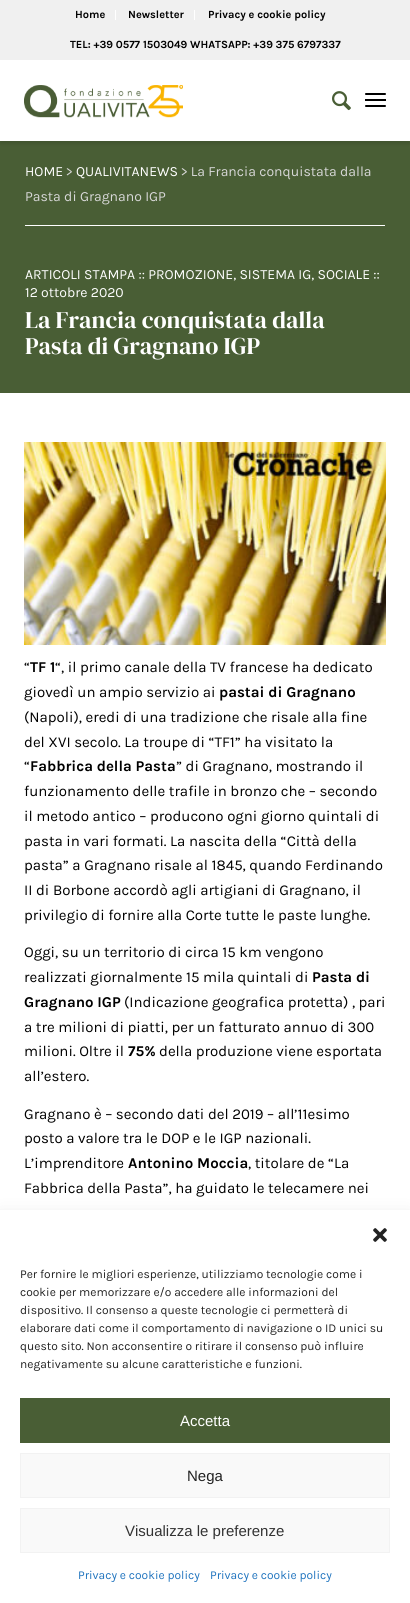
#include <cairo.h>
#include <math.h>
#include <stddef.h>


static void round_rect(cairo_t *cr, double x, double y, double w, double h, double r) {
    cairo_new_sub_path(cr);
    cairo_arc(cr, x + w - r, y + h - r, r, 0, M_PI / 2);
    cairo_arc(cr, x + r, y + h - r, r, M_PI / 2, M_PI);
    cairo_arc(cr, x + r, y + r, r, M_PI, 1.5 * M_PI);
    cairo_arc(cr, x + w - r, y + r, r, 1.5 * M_PI, 2 * M_PI);
    cairo_close_path(cr);
}

static void shadow(cairo_t *cr, double x, double y, double w, double h, double r, double blur, double alpha) {
    cairo_push_group_with_content(cr, CAIRO_CONTENT_ALPHA);
    cairo_set_operator(cr, CAIRO_OPERATOR_SOURCE);
    for (int i = 15; i >= -15 && fmin(w, h) + blur * i / 3 > 0; i -= 2) {
        double e = blur * i / 6;
        cairo_set_source_rgba(cr, 0, 0, 0, alpha * erfc((i - 1) / 8.5) / 2);
        round_rect(cr, x - e, y - e, w + 2 * e, h + 2 * e, fmax(0, fmin(r + e + blur * .6, fmin(w, h) / 2 + e)));
        cairo_fill(cr);
    }
    cairo_pattern_t *soft = cairo_pop_group(cr);
    cairo_mask(cr, soft);
    cairo_pattern_destroy(soft);
}

static void picture(cairo_t *cr, const char *path, double x, double y, double w, double h) {
    cairo_surface_t *image = cairo_image_surface_create_from_png(path);
    cairo_save(cr);
    cairo_set_source_surface(cr, image, x, y);
    cairo_rectangle(cr, x, y, w, h);
    cairo_fill(cr);
    cairo_restore(cr);
    cairo_surface_destroy(image);
}

int main(void) {
    cairo_surface_t *surface = cairo_image_surface_create(CAIRO_FORMAT_RGB24, 410, 1603);
    cairo_t *cr = cairo_create(surface);
    cairo_font_options_t *options = cairo_font_options_create();
    cairo_font_options_set_hint_metrics(options, CAIRO_HINT_METRICS_OFF);
    cairo_font_options_set_hint_style(options, CAIRO_HINT_STYLE_NONE);
    cairo_set_font_options(cr, options);
    cairo_set_miter_limit(cr, 4);
    cairo_set_source_rgb(cr, 1, 1, 1);
    cairo_paint(cr);
    cairo_set_source_rgb(cr, 0.286, 0.369, 0.208);
    cairo_rectangle(cr, 0, 141, 410, 252);
    cairo_fill(cr);
    cairo_set_source_rgb(cr, 0, 0, 0);
    shadow(cr, 0, 3, 410, 141, 0, 1.5, 0.1);
    cairo_set_source_rgb(cr, 0.941, 0.941, 0.941);
    cairo_rectangle(cr, 0, 0, 410, 60);
    cairo_fill(cr);
    cairo_set_source_rgb(cr, 1, 1, 1);
    cairo_rectangle(cr, 115, 10, 1, 10);
    cairo_fill(cr);
    cairo_select_font_face(cr, "Karla", CAIRO_FONT_SLANT_NORMAL, CAIRO_FONT_WEIGHT_BOLD);
    cairo_set_font_size(cr, 11);
    cairo_set_source_rgb(cr, 0, 0, 0);
    cairo_move_to(cr, 75, 18);
    cairo_show_text(cr, "Home");
    cairo_set_source_rgb(cr, 1, 1, 1);
    cairo_rectangle(cr, 194, 10, 1, 10);
    cairo_fill(cr);
    cairo_set_source_rgb(cr, 0, 0, 0);
    cairo_move_to(cr, 128, 18);
    cairo_show_text(cr, "Newsletter");
    cairo_move_to(cr, 208, 18);
    cairo_show_text(cr, "Privacy e cookie policy");
    cairo_move_to(cr, 70, 48);
    cairo_show_text(cr, "TEL: +39 0577 1503049 WHATSAPP: +39 375 6797337");
    cairo_set_source_rgb(cr, 1, 1, 1);
    cairo_rectangle(cr, 0, 60, 410, 81);
    cairo_fill(cr);
    picture(cr, "img1.png", 24, 85, 159, 33);
    picture(cr, "img2.png", 332, 91, 19, 20);
    cairo_set_source_rgb(cr, 0, 0, 0);
    cairo_rectangle(cr, 365, 99, 21, 2);
    cairo_fill(cr);
    round_rect(cr, 365, 93, 21, 2, 1);
    cairo_fill(cr);
    round_rect(cr, 365, 105, 21, 2, 1);
    cairo_fill(cr);
    cairo_set_source_rgb(cr, 1, 1, 1);
    cairo_rectangle(cr, 25, 225, 360, 1);
    cairo_fill(cr);
    cairo_select_font_face(cr, "Karla", CAIRO_FONT_SLANT_NORMAL, CAIRO_FONT_WEIGHT_NORMAL);
    cairo_set_font_size(cr, 14);
    cairo_move_to(cr, 25, 176);
    cairo_show_text(cr, "HOME");
    cairo_set_source_rgb(cr, 0.847, 0.847, 0.847);
    cairo_move_to(cr, 66, 176);
    cairo_show_text(cr, ">");
    cairo_set_source_rgb(cr, 1, 1, 1);
    cairo_move_to(cr, 76, 176);
    cairo_show_text(cr, "QUALIVITANEWS");
    cairo_set_source_rgb(cr, 0.847, 0.847, 0.847);
    cairo_move_to(cr, 181, 176);
    cairo_show_text(cr, "> La Francia conquistata dalla");
    cairo_move_to(cr, 25, 201);
    cairo_show_text(cr, "Pasta di Gragnano IGP");
    cairo_set_source_rgb(cr, 1, 1, 1);
    cairo_move_to(cr, 25, 279);
    cairo_show_text(cr, "ARTICOLI STAMPA :: PROMOZIONE, SISTEMA IG, SOCIALE ::");
    cairo_move_to(cr, 25, 297);
    cairo_show_text(cr, "12 ottobre 2020");
    cairo_select_font_face(cr, "DM Serif Display", CAIRO_FONT_SLANT_NORMAL, CAIRO_FONT_WEIGHT_NORMAL);
    cairo_set_font_size(cr, 24);
    cairo_move_to(cr, 25, 328);
    cairo_show_text(cr, "La Francia conquistata dalla");
    cairo_move_to(cr, 25, 354);
    cairo_show_text(cr, "Pasta di Gragnano IGP");
    picture(cr, "img3.png", 24, 442, 362, 203);
    cairo_select_font_face(cr, "Karla", CAIRO_FONT_SLANT_NORMAL, CAIRO_FONT_WEIGHT_NORMAL);
    cairo_set_font_size(cr, 15);
    cairo_set_source_rgb(cr, 0, 0, 0);
    cairo_move_to(cr, 24, 672);
    cairo_show_text(cr, "“");
    cairo_select_font_face(cr, "Karla", CAIRO_FONT_SLANT_NORMAL, CAIRO_FONT_WEIGHT_BOLD);
    cairo_move_to(cr, 30, 672);
    cairo_show_text(cr, "TF 1");
    cairo_select_font_face(cr, "Karla", CAIRO_FONT_SLANT_NORMAL, CAIRO_FONT_WEIGHT_NORMAL);
    cairo_move_to(cr, 55, 672);
    cairo_show_text(cr, "“, il primo canale della TV francese ha dedicato");
    cairo_move_to(cr, 24, 697);
    cairo_show_text(cr, "giovedì un ampio servizio ai");
    cairo_select_font_face(cr, "Karla", CAIRO_FONT_SLANT_NORMAL, CAIRO_FONT_WEIGHT_BOLD);
    cairo_move_to(cr, 219, 697);
    cairo_show_text(cr, "pastai di Gragnano");
    cairo_select_font_face(cr, "Karla", CAIRO_FONT_SLANT_NORMAL, CAIRO_FONT_WEIGHT_NORMAL);
    cairo_move_to(cr, 24, 722);
    cairo_show_text(cr, "(Napoli), eredi di una tradizione che risale alla fine");
    cairo_move_to(cr, 24, 747);
    cairo_show_text(cr, "del XVI secolo. La troupe di “TF1” ha visitato la");
    cairo_move_to(cr, 24, 771);
    cairo_show_text(cr, "“");
    cairo_select_font_face(cr, "Karla", CAIRO_FONT_SLANT_NORMAL, CAIRO_FONT_WEIGHT_BOLD);
    cairo_move_to(cr, 30, 771);
    cairo_show_text(cr, "Fabbrica della Pasta");
    cairo_select_font_face(cr, "Karla", CAIRO_FONT_SLANT_NORMAL, CAIRO_FONT_WEIGHT_NORMAL);
    cairo_move_to(cr, 176, 771);
    cairo_show_text(cr, "” di Gragnano, mostrando il");
    cairo_move_to(cr, 24, 796);
    cairo_show_text(cr, "funzionamento delle trafile in bronzo che – secondo");
    cairo_move_to(cr, 24, 821);
    cairo_show_text(cr, "il metodo antico – producono ogni giorno quintali di");
    cairo_move_to(cr, 24, 846);
    cairo_show_text(cr, "pasta in vari formati. La nascita della “Città della");
    cairo_move_to(cr, 24, 870);
    cairo_show_text(cr, "pasta” a Gragnano risale al 1845, quando Ferdinando");
    cairo_move_to(cr, 24, 895);
    cairo_show_text(cr, "II di Borbone accordò agli artigiani di Gragnano, il");
    cairo_move_to(cr, 24, 920);
    cairo_show_text(cr, "privilegio di fornire alla Corte tutte le paste lunghe.");
    cairo_move_to(cr, 24, 957);
    cairo_show_text(cr, "Oggi, su un territorio di circa 15 km vengono");
    cairo_move_to(cr, 24, 982);
    cairo_show_text(cr, "realizzati giornalmente 15 mila quintali di");
    cairo_select_font_face(cr, "Karla", CAIRO_FONT_SLANT_NORMAL, CAIRO_FONT_WEIGHT_BOLD);
    cairo_move_to(cr, 312, 982);
    cairo_show_text(cr, "Pasta di");
    cairo_move_to(cr, 24, 1007);
    cairo_show_text(cr, "Gragnano IGP");
    cairo_select_font_face(cr, "Karla", CAIRO_FONT_SLANT_NORMAL, CAIRO_FONT_WEIGHT_NORMAL);
    cairo_move_to(cr, 124, 1007);
    cairo_show_text(cr, "(Indicazione geografica protetta) , pari");
    cairo_move_to(cr, 24, 1032);
    cairo_show_text(cr, "a tre milioni di piatti, per un fatturato annuo di 300");
    cairo_move_to(cr, 24, 1056);
    cairo_show_text(cr, "milioni. Oltre il");
    cairo_select_font_face(cr, "Karla", CAIRO_FONT_SLANT_NORMAL, CAIRO_FONT_WEIGHT_BOLD);
    cairo_move_to(cr, 128, 1056);
    cairo_show_text(cr, "75%");
    cairo_select_font_face(cr, "Karla", CAIRO_FONT_SLANT_NORMAL, CAIRO_FONT_WEIGHT_NORMAL);
    cairo_move_to(cr, 159, 1056);
    cairo_show_text(cr, "della produzione viene esportata");
    cairo_move_to(cr, 24, 1081);
    cairo_show_text(cr, "all’estero.");
    cairo_move_to(cr, 24, 1119);
    cairo_show_text(cr, "Gragnano è – secondo dati del 2019 – all’11esimo");
    cairo_move_to(cr, 24, 1143);
    cairo_show_text(cr, "posto a valore tra le DOP e le IGP nazionali.");
    cairo_move_to(cr, 24, 1168);
    cairo_show_text(cr, "L’imprenditore");
    cairo_select_font_face(cr, "Karla", CAIRO_FONT_SLANT_NORMAL, CAIRO_FONT_WEIGHT_BOLD);
    cairo_move_to(cr, 128, 1168);
    cairo_show_text(cr, "Antonino Moccia");
    cairo_select_font_face(cr, "Karla", CAIRO_FONT_SLANT_NORMAL, CAIRO_FONT_WEIGHT_NORMAL);
    cairo_move_to(cr, 248, 1168);
    cairo_show_text(cr, ", titolare de “La");
    cairo_move_to(cr, 24, 1193);
    cairo_show_text(cr, "Fabbrica della Pasta”, ha guidato le telecamere nei");
    cairo_set_source_rgb(cr, 0, 0, 0);
    shadow(cr, 0, 1220, 410, 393, 0, 10, 0.19);
    cairo_set_source_rgb(cr, 1, 1, 1);
    cairo_rectangle(cr, 0, 1210, 410, 393);
    cairo_fill(cr);
    picture(cr, "img4.png", 373, 1228, 14, 14);
    cairo_set_font_size(cr, 12);
    cairo_set_source_rgb(cr, 0.133, 0.133, 0.133);
    cairo_move_to(cr, 20, 1278);
    cairo_show_text(cr, "Per fornire le migliori esperienze, utilizziamo tecnologie come i");
    cairo_move_to(cr, 20, 1296);
    cairo_show_text(cr, "cookie per memorizzare e/o accedere alle informazioni del");
    cairo_move_to(cr, 20, 1314);
    cairo_show_text(cr, "dispositivo. Il consenso a queste tecnologie ci permetterà di");
    cairo_move_to(cr, 20, 1332);
    cairo_show_text(cr, "elaborare dati come il comportamento di navigazione o ID unici su");
    cairo_move_to(cr, 20, 1350);
    cairo_show_text(cr, "questo sito. Non acconsentire o ritirare il consenso può influire");
    cairo_move_to(cr, 20, 1368);
    cairo_show_text(cr, "negativamente su alcune caratteristiche e funzioni.");
    cairo_set_source_rgb(cr, 0.286, 0.369, 0.208);
    cairo_rectangle(cr, 20, 1398, 370, 45);
    cairo_fill(cr);
    cairo_select_font_face(cr, "Liberation Sans", CAIRO_FONT_SLANT_NORMAL, CAIRO_FONT_WEIGHT_NORMAL);
    cairo_set_font_size(cr, 15);
    cairo_set_source_rgb(cr, 1, 1, 1);
    cairo_move_to(cr, 180, 1426);
    cairo_show_text(cr, "Accetta");
    cairo_set_source_rgb(cr, 0.976, 0.976, 0.976);
    cairo_rectangle(cr, 20.5, 1453.5, 369, 44);
    cairo_fill_preserve(cr);
    cairo_set_source_rgb(cr, 0.949, 0.949, 0.949);
    cairo_set_line_width(cr, 1);
    cairo_stroke(cr);
    cairo_set_source_rgb(cr, 0.133, 0.133, 0.133);
    cairo_move_to(cr, 187, 1481);
    cairo_show_text(cr, "Nega");
    cairo_set_source_rgb(cr, 0.976, 0.976, 0.976);
    cairo_rectangle(cr, 20.5, 1508.5, 369, 44);
    cairo_fill_preserve(cr);
    cairo_set_source_rgb(cr, 0.949, 0.949, 0.949);
    cairo_stroke(cr);
    cairo_set_source_rgb(cr, 0.2, 0.2, 0.2);
    cairo_move_to(cr, 125, 1536);
    cairo_show_text(cr, "Visualizza le preferenze");
    cairo_select_font_face(cr, "Karla", CAIRO_FONT_SLANT_NORMAL, CAIRO_FONT_WEIGHT_NORMAL);
    cairo_set_font_size(cr, 12);
    cairo_set_source_rgb(cr, 0.118, 0.451, 0.745);
    cairo_move_to(cr, 78, 1579);
    cairo_show_text(cr, "Privacy e cookie policy");
    cairo_move_to(cr, 210, 1579);
    cairo_show_text(cr, "Privacy e cookie policy");
    cairo_surface_write_to_png(surface, "page.png");
    cairo_font_options_destroy(options);
    cairo_destroy(cr);
    cairo_surface_destroy(surface);
    return 0;
}
